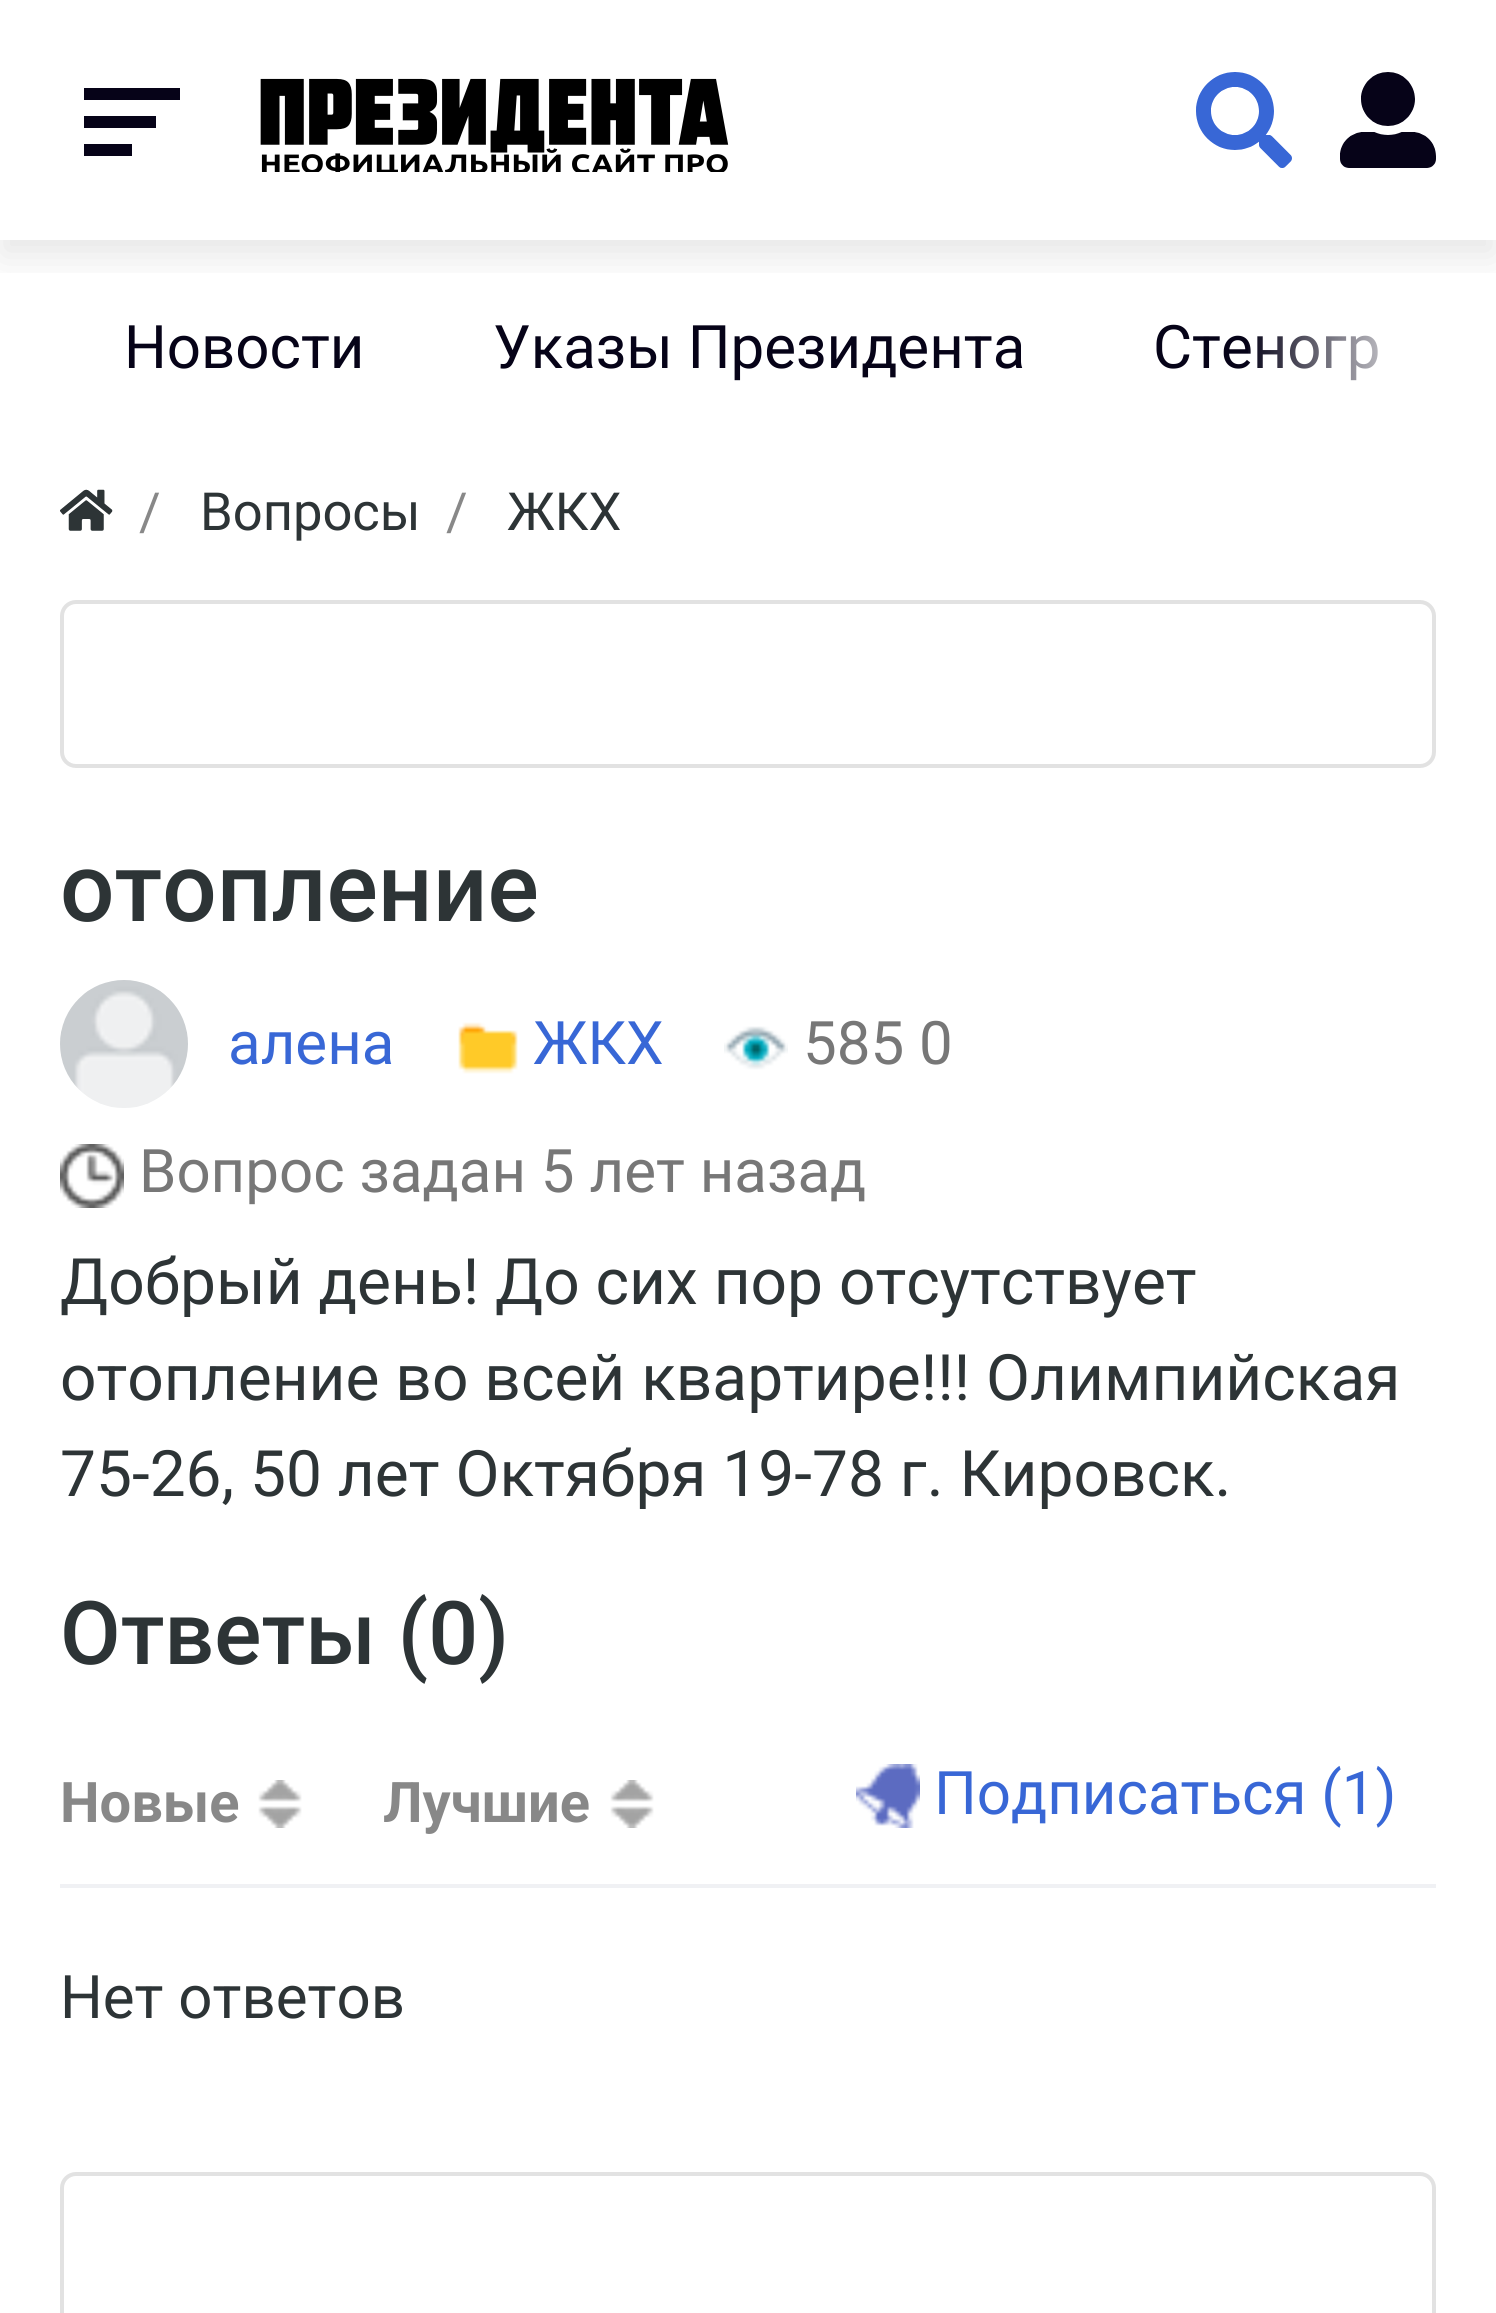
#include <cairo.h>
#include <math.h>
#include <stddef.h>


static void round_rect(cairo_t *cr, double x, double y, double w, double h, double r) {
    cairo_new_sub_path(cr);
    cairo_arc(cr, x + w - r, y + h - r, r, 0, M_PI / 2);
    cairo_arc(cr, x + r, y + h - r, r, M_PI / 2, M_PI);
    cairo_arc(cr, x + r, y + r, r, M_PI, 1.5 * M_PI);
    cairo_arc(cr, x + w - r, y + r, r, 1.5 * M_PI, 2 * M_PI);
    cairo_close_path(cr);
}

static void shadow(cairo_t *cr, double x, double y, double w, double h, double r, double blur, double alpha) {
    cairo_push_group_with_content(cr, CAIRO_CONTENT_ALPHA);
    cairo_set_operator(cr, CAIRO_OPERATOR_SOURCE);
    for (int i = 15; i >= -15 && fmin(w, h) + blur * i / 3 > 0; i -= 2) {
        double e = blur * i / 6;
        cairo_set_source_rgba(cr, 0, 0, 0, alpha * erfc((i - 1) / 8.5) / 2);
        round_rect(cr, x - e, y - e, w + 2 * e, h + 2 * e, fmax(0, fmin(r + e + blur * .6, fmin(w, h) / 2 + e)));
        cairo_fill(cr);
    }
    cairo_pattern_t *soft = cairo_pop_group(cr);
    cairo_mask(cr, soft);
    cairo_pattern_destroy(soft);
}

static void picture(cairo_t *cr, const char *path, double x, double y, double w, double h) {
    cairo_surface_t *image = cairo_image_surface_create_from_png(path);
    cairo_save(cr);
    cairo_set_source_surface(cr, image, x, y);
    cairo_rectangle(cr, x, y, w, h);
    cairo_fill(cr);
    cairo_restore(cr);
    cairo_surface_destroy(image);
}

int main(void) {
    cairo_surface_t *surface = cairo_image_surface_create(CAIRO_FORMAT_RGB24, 1496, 2313);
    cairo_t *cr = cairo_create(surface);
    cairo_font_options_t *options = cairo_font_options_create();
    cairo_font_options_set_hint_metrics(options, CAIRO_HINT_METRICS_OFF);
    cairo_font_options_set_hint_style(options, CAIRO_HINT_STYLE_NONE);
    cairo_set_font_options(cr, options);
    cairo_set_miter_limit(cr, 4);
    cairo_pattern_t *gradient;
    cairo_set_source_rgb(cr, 1, 1, 1);
    cairo_paint(cr);
    cairo_save(cr);
    cairo_rectangle(cr, 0, 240, 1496, 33);
    cairo_clip(cr);
    cairo_set_source_rgb(cr, 0, 0, 0);
    shadow(cr, 0, 16, 1496, 240, 0, 20, 0.1);
    cairo_restore(cr);
    cairo_set_source_rgb(cr, 0.024, 0.012, 0.094);
    cairo_rectangle(cr, 84, 88, 96, 12);
    cairo_fill(cr);
    cairo_rectangle(cr, 84, 116, 72, 12);
    cairo_fill(cr);
    cairo_rectangle(cr, 84, 144, 48, 12);
    cairo_fill(cr);
    picture(cr, "img1.png", 260, 78, 469, 94);
    picture(cr, "img2.png", 1196, 72, 96, 96);
    picture(cr, "img3.png", 1340, 72, 96, 96);
    cairo_select_font_face(cr, "Roboto", CAIRO_FONT_SLANT_NORMAL, CAIRO_FONT_WEIGHT_NORMAL);
    cairo_set_font_size(cr, 60);
    cairo_move_to(cr, 124, 368);
    cairo_show_text(cr, "Новости");
    cairo_move_to(cr, 493, 368);
    cairo_show_text(cr, "Указы Президента");
    cairo_move_to(cr, 1153, 368);
    cairo_show_text(cr, "Стеногр");
    gradient = cairo_pattern_create_linear(1436, 350, 1244, 350);
    cairo_pattern_add_color_stop_rgba(gradient, 0, 1, 1, 1, 1);
    cairo_pattern_add_color_stop_rgba(gradient, 1, 1, 1, 1, 0);
    cairo_set_source(cr, gradient);
    cairo_pattern_destroy(gradient);
    cairo_rectangle(cr, 1248, 335, 130, 46);
    cairo_fill(cr);
    picture(cr, "img4.png", 60, 489, 53, 42);
    cairo_set_font_size(cr, 52.5);
    cairo_set_source_rgb(cr, 0.533, 0.533, 0.533);
    cairo_move_to(cr, 139, 530);
    cairo_show_text(cr, "/");
    cairo_set_source_rgb(cr, 0.176, 0.204, 0.212);
    cairo_move_to(cr, 200, 530);
    cairo_show_text(cr, "Вопросы");
    cairo_set_source_rgb(cr, 0.533, 0.533, 0.533);
    cairo_move_to(cr, 446, 530);
    cairo_show_text(cr, "/");
    cairo_set_source_rgb(cr, 0.176, 0.204, 0.212);
    cairo_move_to(cr, 507, 530);
    cairo_show_text(cr, "ЖКХ");
    round_rect(cr, 62, 602, 1372, 164, 14);
    cairo_set_source_rgb(cr, 0.886, 0.886, 0.886);
    cairo_set_line_width(cr, 4);
    cairo_stroke(cr);
    cairo_select_font_face(cr, "Roboto Medium", CAIRO_FONT_SLANT_NORMAL, CAIRO_FONT_WEIGHT_NORMAL);
    cairo_set_font_size(cr, 96);
    cairo_set_source_rgb(cr, 0.176, 0.204, 0.212);
    cairo_move_to(cr, 60, 921);
    cairo_show_text(cr, "отопление");
    picture(cr, "img5.png", 60, 980, 128, 128);
    cairo_select_font_face(cr, "Roboto", CAIRO_FONT_SLANT_NORMAL, CAIRO_FONT_WEIGHT_NORMAL);
    cairo_set_font_size(cr, 60);
    cairo_set_source_rgb(cr, 0.22, 0.404, 0.839);
    cairo_move_to(cr, 228, 1064);
    cairo_show_text(cr, "алена");
    picture(cr, "img6.png", 458, 1022, 60, 52);
    cairo_move_to(cr, 533, 1064);
    cairo_show_text(cr, "ЖКХ");
    picture(cr, "img7.png", 724, 1026, 64, 44);
    cairo_set_source_rgb(cr, 0.467, 0.467, 0.467);
    cairo_move_to(cr, 803, 1064);
    cairo_show_text(cr, "585 0");
    picture(cr, "img8.png", 60, 1144, 64, 64);
    cairo_move_to(cr, 139, 1192);
    cairo_show_text(cr, "Вопрос задан 5 лет назад");
    cairo_set_font_size(cr, 64);
    cairo_set_source_rgb(cr, 0.176, 0.204, 0.212);
    cairo_move_to(cr, 60, 1304);
    cairo_show_text(cr, "Добрый день! До сих пор отсутствует");
    cairo_move_to(cr, 60, 1400);
    cairo_show_text(cr, "отопление во всей квартире!!! Олимпийская");
    cairo_move_to(cr, 60, 1496);
    cairo_show_text(cr, "75-26, 50 лет Октября 19-78 г. Кировск.");
    cairo_select_font_face(cr, "Roboto Medium", CAIRO_FONT_SLANT_NORMAL, CAIRO_FONT_WEIGHT_NORMAL);
    cairo_set_font_size(cr, 88);
    cairo_move_to(cr, 60, 1664);
    cairo_show_text(cr, "Ответы (0)");
    cairo_set_source_rgb(cr, 0.941, 0.945, 0.957);
    cairo_rectangle(cr, 60, 1884, 1376, 4);
    cairo_fill(cr);
    picture(cr, "img9.png", 258, 1780, 44, 48);
    cairo_select_font_face(cr, "Roboto", CAIRO_FONT_SLANT_NORMAL, CAIRO_FONT_WEIGHT_BOLD);
    cairo_set_font_size(cr, 56);
    cairo_set_source_rgb(cr, 0.533, 0.533, 0.533);
    cairo_move_to(cr, 60, 1822);
    cairo_show_text(cr, "Новые");
    picture(cr, "img9.png", 610, 1780, 44, 48);
    cairo_move_to(cr, 383, 1822);
    cairo_show_text(cr, "Лучшие");
    picture(cr, "img10.png", 856, 1764, 64, 64);
    cairo_select_font_face(cr, "Roboto", CAIRO_FONT_SLANT_NORMAL, CAIRO_FONT_WEIGHT_NORMAL);
    cairo_set_font_size(cr, 60);
    cairo_set_source_rgb(cr, 0.22, 0.404, 0.839);
    cairo_move_to(cr, 934, 1814);
    cairo_show_text(cr, "Подписаться (1)");
    cairo_set_source_rgb(cr, 0.176, 0.204, 0.212);
    cairo_move_to(cr, 60, 2018);
    cairo_show_text(cr, "Нет ответов");
    round_rect(cr, 62, 2174, 1372, 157, 14);
    cairo_set_source_rgb(cr, 0.886, 0.886, 0.886);
    cairo_stroke(cr);
    cairo_surface_write_to_png(surface, "page.png");
    cairo_font_options_destroy(options);
    cairo_destroy(cr);
    cairo_surface_destroy(surface);
    return 0;
}
